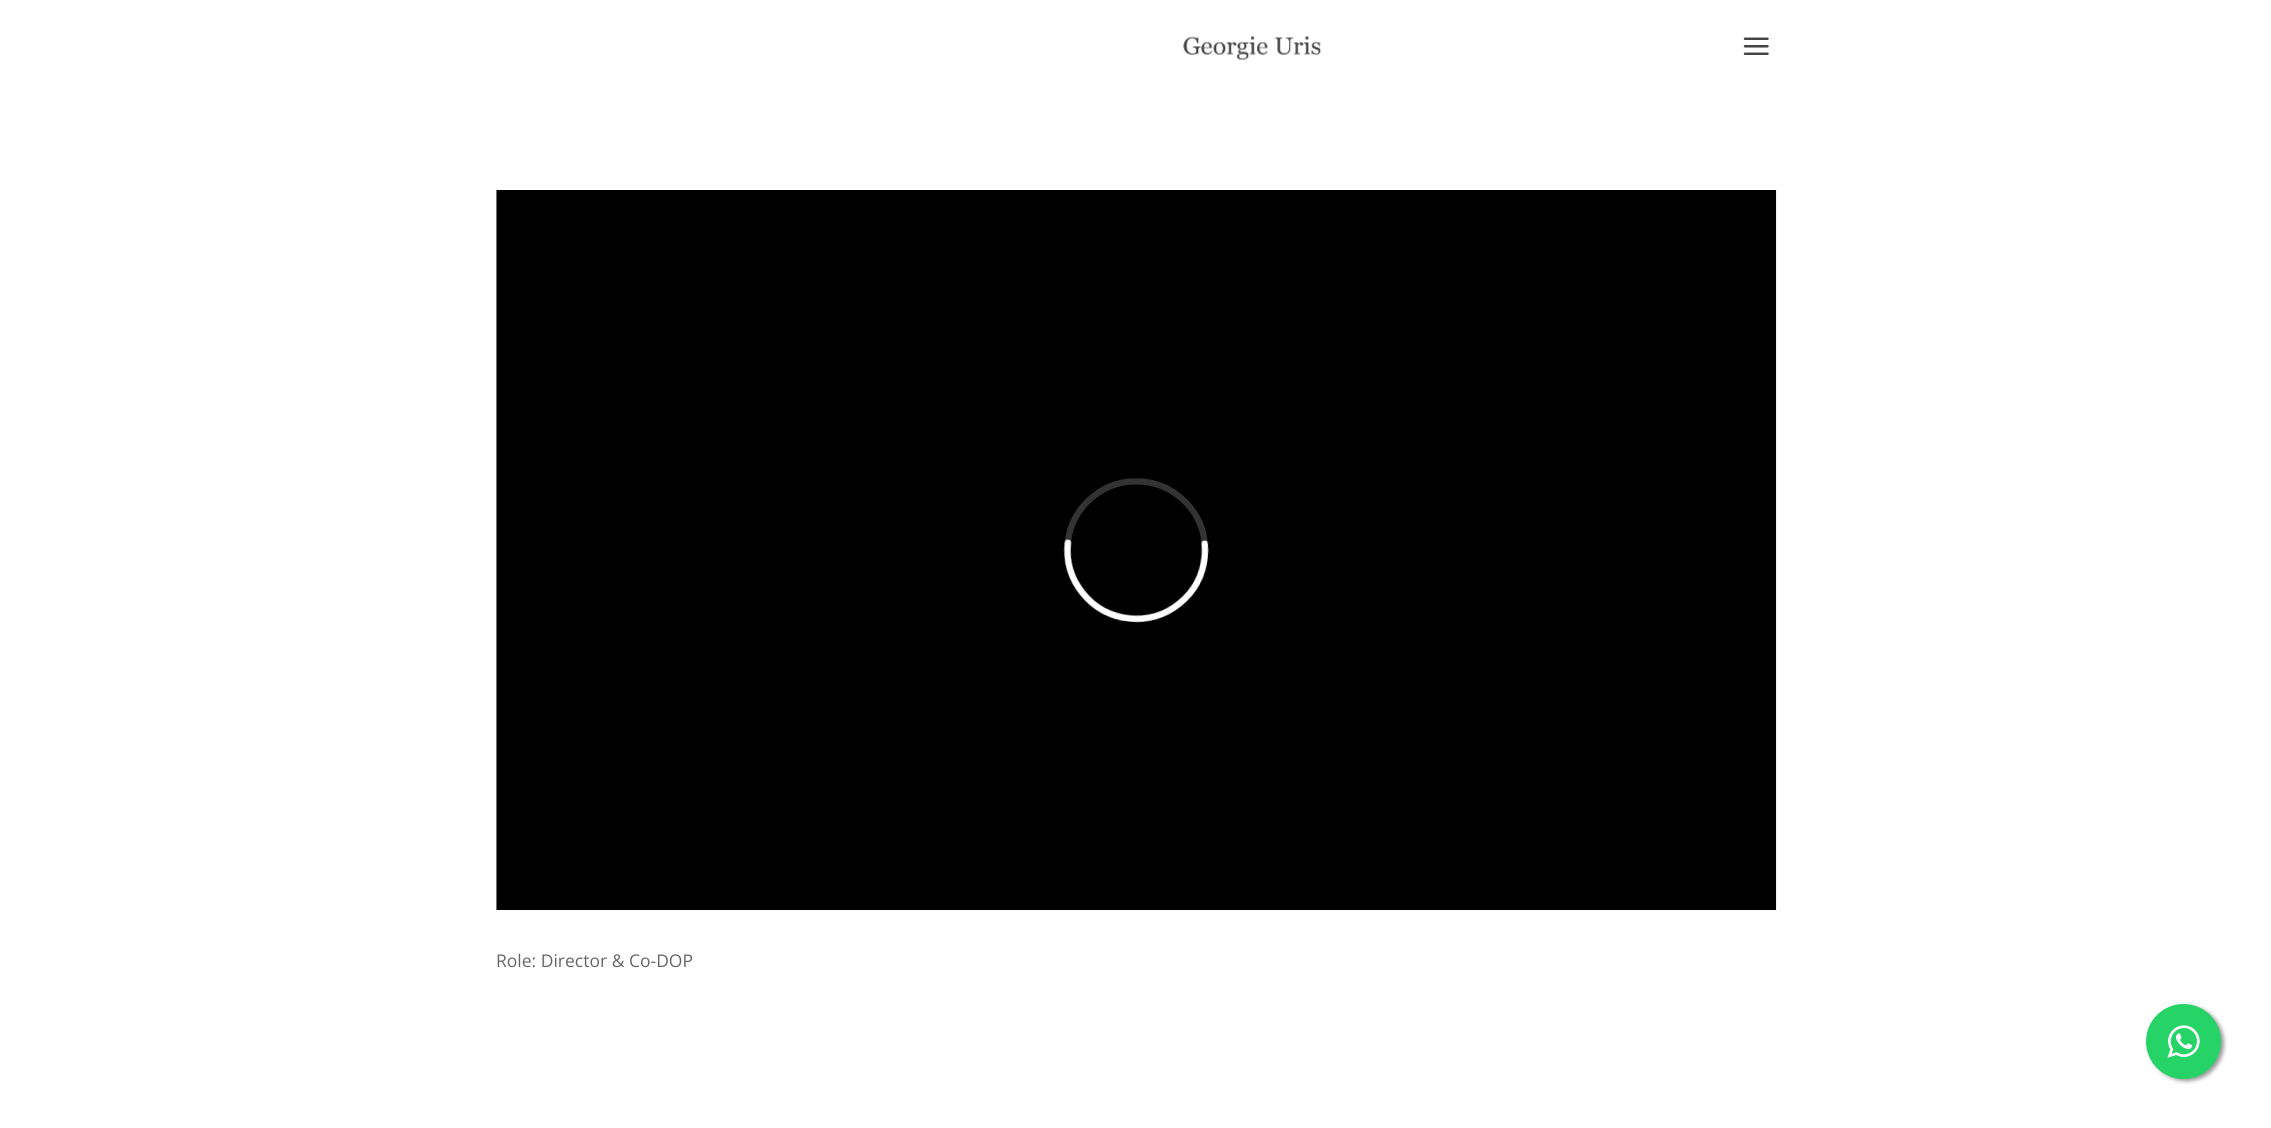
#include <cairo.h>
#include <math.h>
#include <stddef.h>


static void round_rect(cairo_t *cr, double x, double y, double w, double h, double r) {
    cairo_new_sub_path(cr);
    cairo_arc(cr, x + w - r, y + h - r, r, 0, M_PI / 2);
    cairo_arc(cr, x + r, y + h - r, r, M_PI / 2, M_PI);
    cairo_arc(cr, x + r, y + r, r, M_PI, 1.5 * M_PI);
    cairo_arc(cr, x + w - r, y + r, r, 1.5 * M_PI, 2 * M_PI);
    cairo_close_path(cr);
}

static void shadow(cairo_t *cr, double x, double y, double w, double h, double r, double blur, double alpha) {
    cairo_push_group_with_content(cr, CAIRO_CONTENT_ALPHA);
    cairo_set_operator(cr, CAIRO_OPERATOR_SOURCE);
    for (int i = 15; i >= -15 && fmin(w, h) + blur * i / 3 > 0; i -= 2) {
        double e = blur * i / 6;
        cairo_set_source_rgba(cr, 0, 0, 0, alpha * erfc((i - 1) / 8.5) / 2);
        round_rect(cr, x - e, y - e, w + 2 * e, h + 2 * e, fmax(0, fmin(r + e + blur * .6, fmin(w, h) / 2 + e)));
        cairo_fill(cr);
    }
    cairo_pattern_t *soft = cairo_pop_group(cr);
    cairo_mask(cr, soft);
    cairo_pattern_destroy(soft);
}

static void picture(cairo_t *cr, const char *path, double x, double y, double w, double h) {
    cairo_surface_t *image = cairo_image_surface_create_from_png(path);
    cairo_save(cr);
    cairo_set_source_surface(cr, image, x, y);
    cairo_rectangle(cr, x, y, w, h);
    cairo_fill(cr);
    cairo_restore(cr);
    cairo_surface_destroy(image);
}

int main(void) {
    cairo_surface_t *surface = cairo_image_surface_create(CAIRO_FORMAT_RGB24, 2271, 1128);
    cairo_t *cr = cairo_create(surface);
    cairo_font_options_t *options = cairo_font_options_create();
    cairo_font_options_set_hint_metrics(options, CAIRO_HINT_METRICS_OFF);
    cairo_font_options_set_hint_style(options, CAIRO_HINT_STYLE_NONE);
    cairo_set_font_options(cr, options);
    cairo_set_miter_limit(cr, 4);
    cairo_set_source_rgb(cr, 1, 1, 1);
    cairo_paint(cr);
    picture(cr, "img1.png", 1183, 36, 138, 24);
    picture(cr, "img2.png", 1743, 37, 26, 18);
    picture(cr, "img3.png", 496, 190, 1281, 720);
    cairo_select_font_face(cr, "Open Sans", CAIRO_FONT_SLANT_NORMAL, CAIRO_FONT_WEIGHT_NORMAL);
    cairo_set_font_size(cr, 17.5);
    cairo_set_source_rgb(cr, 0.4, 0.4, 0.4);
    cairo_move_to(cr, 496, 967);
    cairo_show_text(cr, "Role: Director & Co-DOP");
    cairo_set_source_rgb(cr, 0.6, 0.6, 0.6);
    shadow(cr, 2149, 1006, 75, 75, 37.5, 2, 1);
    cairo_set_source_rgb(cr, 0.145, 0.827, 0.4);
    cairo_arc(cr, 2183.5, 1041.5, 37.5, 0, 2 * M_PI);
    cairo_fill(cr);
    picture(cr, "img4.png", 2167, 1025, 33, 33);
    cairo_surface_write_to_png(surface, "page.png");
    cairo_font_options_destroy(options);
    cairo_destroy(cr);
    cairo_surface_destroy(surface);
    return 0;
}
